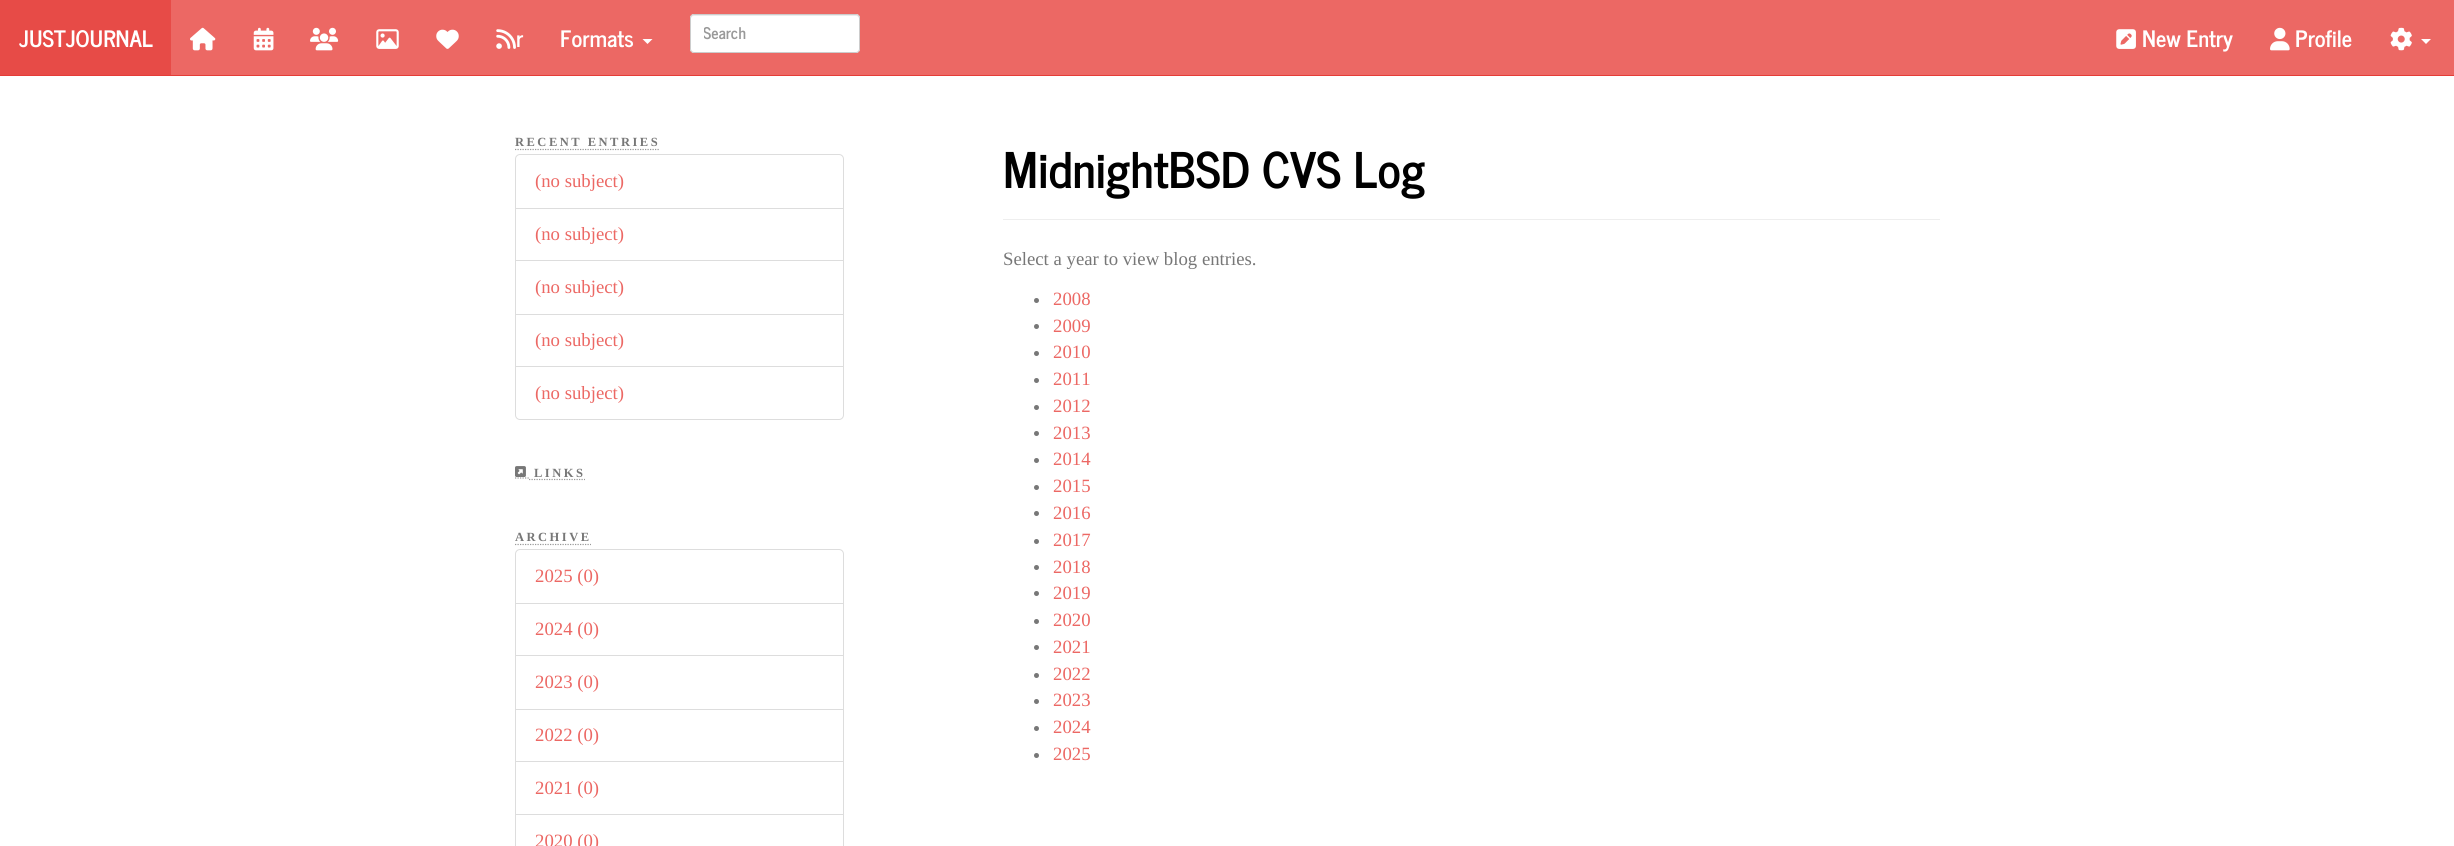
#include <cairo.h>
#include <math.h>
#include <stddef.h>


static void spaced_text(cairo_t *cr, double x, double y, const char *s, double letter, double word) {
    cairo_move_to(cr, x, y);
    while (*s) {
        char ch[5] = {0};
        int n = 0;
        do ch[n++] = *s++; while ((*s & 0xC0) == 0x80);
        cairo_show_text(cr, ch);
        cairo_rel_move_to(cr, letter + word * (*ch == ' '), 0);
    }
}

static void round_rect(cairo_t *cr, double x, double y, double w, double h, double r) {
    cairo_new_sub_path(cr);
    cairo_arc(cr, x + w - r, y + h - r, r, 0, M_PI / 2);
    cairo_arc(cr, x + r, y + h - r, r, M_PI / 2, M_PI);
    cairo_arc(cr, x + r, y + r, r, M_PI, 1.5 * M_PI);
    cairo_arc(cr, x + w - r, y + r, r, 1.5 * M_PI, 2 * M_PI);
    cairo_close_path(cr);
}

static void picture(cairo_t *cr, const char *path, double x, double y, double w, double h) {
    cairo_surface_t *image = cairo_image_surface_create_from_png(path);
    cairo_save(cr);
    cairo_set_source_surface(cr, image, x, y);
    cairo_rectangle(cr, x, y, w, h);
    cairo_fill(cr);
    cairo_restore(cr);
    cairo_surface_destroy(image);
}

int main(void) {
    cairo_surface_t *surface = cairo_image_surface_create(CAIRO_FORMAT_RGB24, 2454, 846);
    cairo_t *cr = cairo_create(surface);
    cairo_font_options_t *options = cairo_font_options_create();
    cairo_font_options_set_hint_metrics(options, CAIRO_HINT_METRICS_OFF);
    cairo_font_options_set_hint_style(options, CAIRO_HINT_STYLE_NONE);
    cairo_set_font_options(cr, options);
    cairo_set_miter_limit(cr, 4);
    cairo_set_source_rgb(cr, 1, 1, 1);
    cairo_paint(cr);
    cairo_set_source_rgb(cr, 0.922, 0.408, 0.392);
    cairo_rectangle(cr, 171, 0, 2283, 75);
    cairo_fill(cr);
    cairo_set_source_rgb(cr, 0.898, 0.235, 0.216);
    cairo_rectangle(cr, 0, 75, 2454, 1);
    cairo_fill(cr);
    cairo_set_source_rgb(cr, 0.906, 0.294, 0.278);
    cairo_rectangle(cr, 0, 0, 171, 75);
    cairo_fill(cr);
    cairo_select_font_face(cr, "News Cycle", CAIRO_FONT_SLANT_NORMAL, CAIRO_FONT_WEIGHT_BOLD);
    cairo_set_font_size(cr, 22.5);
    cairo_set_source_rgb(cr, 1, 1, 1);
    cairo_move_to(cr, 19, 47);
    cairo_show_text(cr, "JUSTJOURNAL");
    picture(cr, "img1.png", 190, 27, 26, 24);
    picture(cr, "img2.png", 253, 27, 21, 24);
    picture(cr, "img3.png", 310, 27, 29, 24);
    picture(cr, "img4.png", 376, 29, 23, 20);
    picture(cr, "img5.png", 436, 29, 23, 20);
    picture(cr, "img6.png", 496, 29, 20, 20);
    cairo_move_to(cr, 516, 47);
    cairo_show_text(cr, "r");
    cairo_move_to(cr, 560, 47);
    cairo_show_text(cr, "Formats");
    cairo_new_path(cr);
    cairo_move_to(cr, 642.5, 39);
    cairo_line_to(cr, 652.5, 39);
    cairo_line_to(cr, 647.5, 44);
    cairo_close_path(cr);
    cairo_fill(cr);
    round_rect(cr, 690, 14, 170, 39, 4);
    cairo_fill(cr);
    cairo_set_source_rgb(cr, 0.925, 0.925, 0.925);
    cairo_new_path(cr);
    cairo_move_to(cr, 694, 16);
    cairo_line_to(cr, 856, 16);
    cairo_curve_to(cr, 858, 16, 859, 17, 859, 19);
    cairo_line_to(cr, 859, 18);
    cairo_curve_to(cr, 859, 16, 858, 15, 856, 15);
    cairo_line_to(cr, 694, 15);
    cairo_curve_to(cr, 692, 15, 691, 16, 691, 18);
    cairo_line_to(cr, 691, 19);
    cairo_curve_to(cr, 691, 17, 692, 16, 694, 16);
    cairo_close_path(cr);
    cairo_fill(cr);
    round_rect(cr, 690.5, 14.5, 169, 38, 3.5);
    cairo_set_source_rgb(cr, 0.8, 0.8, 0.8);
    cairo_set_line_width(cr, 1);
    cairo_stroke(cr);
    cairo_save(cr);
    cairo_rectangle(cr, 704, 20, 137, 26);
    cairo_clip(cr);
    cairo_set_font_size(cr, 16);
    cairo_set_source_rgb(cr, 0.6, 0.6, 0.6);
    cairo_move_to(cr, 703, 39);
    cairo_show_text(cr, "Search");
    cairo_restore(cr);
    picture(cr, "img7.png", 2116, 29, 20, 20);
    cairo_set_source_rgb(cr, 1, 1, 1);
    cairo_move_to(cr, 2142, 47);
    cairo_show_text(cr, "New Entry");
    picture(cr, "img8.png", 2270, 27, 20, 24);
    cairo_move_to(cr, 2295, 47);
    cairo_show_text(cr, "Profile");
    picture(cr, "img9.png", 2390, 27, 22, 24);
    cairo_new_path(cr);
    cairo_move_to(cr, 2421, 39);
    cairo_line_to(cr, 2431, 39);
    cairo_line_to(cr, 2426, 44);
    cairo_close_path(cr);
    cairo_fill(cr);
    cairo_select_font_face(cr, "Liberation Serif", CAIRO_FONT_SLANT_NORMAL, CAIRO_FONT_WEIGHT_BOLD);
    cairo_set_font_size(cr, 12.5);
    cairo_set_source_rgb(cr, 0.467, 0.467, 0.467);
    spaced_text(cr, 515, 146, "RECENT ENTRIES", 2.5, 0);
    cairo_new_path(cr);
    cairo_move_to(cr, 515, 149.5);
    cairo_line_to(cr, 660, 149.5);
    cairo_set_source_rgb(cr, 0.6, 0.6, 0.6);
    cairo_set_line_width(cr, 1.2);
    cairo_set_dash(cr, (double[]){1.25, 1.25}, 2, 0);
    cairo_stroke(cr);
    cairo_new_path(cr);
    cairo_move_to(cr, 520, 154.5);
    cairo_line_to(cr, 839, 154.5);
    cairo_curve_to(cr, 841.5, 154.5, 843.5, 156.5, 843.5, 159);
    cairo_line_to(cr, 843.5, 208.5);
    cairo_line_to(cr, 515.5, 208.5);
    cairo_line_to(cr, 515.5, 159);
    cairo_curve_to(cr, 515.5, 156.5, 517.5, 154.5, 520, 154.5);
    cairo_close_path(cr);
    cairo_set_source_rgb(cr, 0.867, 0.867, 0.867);
    cairo_set_line_width(cr, 1);
    cairo_set_dash(cr, NULL, 0, 0);
    cairo_stroke(cr);
    cairo_select_font_face(cr, "Liberation Serif", CAIRO_FONT_SLANT_NORMAL, CAIRO_FONT_WEIGHT_NORMAL);
    cairo_set_font_size(cr, 18.75);
    cairo_set_source_rgb(cr, 0.922, 0.408, 0.392);
    cairo_move_to(cr, 535, 187);
    cairo_show_text(cr, "(no subject)");
    cairo_rectangle(cr, 515.5, 208.5, 328, 52);
    cairo_set_source_rgb(cr, 0.867, 0.867, 0.867);
    cairo_stroke(cr);
    cairo_set_source_rgb(cr, 0.922, 0.408, 0.392);
    cairo_move_to(cr, 535, 240);
    cairo_show_text(cr, "(no subject)");
    cairo_rectangle(cr, 515.5, 260.5, 328, 54);
    cairo_set_source_rgb(cr, 0.867, 0.867, 0.867);
    cairo_stroke(cr);
    cairo_set_source_rgb(cr, 0.922, 0.408, 0.392);
    cairo_move_to(cr, 535, 293);
    cairo_show_text(cr, "(no subject)");
    cairo_rectangle(cr, 515.5, 314.5, 328, 53);
    cairo_set_source_rgb(cr, 0.867, 0.867, 0.867);
    cairo_stroke(cr);
    cairo_set_source_rgb(cr, 0.922, 0.408, 0.392);
    cairo_move_to(cr, 535, 346);
    cairo_show_text(cr, "(no subject)");
    cairo_set_source_rgb(cr, 1, 1, 1);
    cairo_new_path(cr);
    cairo_move_to(cr, 515.5, 366.5);
    cairo_line_to(cr, 843.5, 366.5);
    cairo_line_to(cr, 843.5, 415);
    cairo_curve_to(cr, 843.5, 417.5, 841.5, 419.5, 839, 419.5);
    cairo_line_to(cr, 520, 419.5);
    cairo_curve_to(cr, 517.5, 419.5, 515.5, 417.5, 515.5, 415);
    cairo_close_path(cr);
    cairo_fill_preserve(cr);
    cairo_set_source_rgb(cr, 0.867, 0.867, 0.867);
    cairo_stroke(cr);
    cairo_set_source_rgb(cr, 0.922, 0.408, 0.392);
    cairo_move_to(cr, 535, 399);
    cairo_show_text(cr, "(no subject)");
    cairo_new_path(cr);
    cairo_move_to(cr, 515, 478);
    cairo_line_to(cr, 529, 478);
    cairo_set_source_rgb(cr, 0.6, 0.6, 0.6);
    cairo_set_line_width(cr, 1.2);
    cairo_set_dash(cr, (double[]){1.25, 1.25}, 2, 0);
    cairo_stroke(cr);
    cairo_new_path(cr);
    cairo_move_to(cr, 529, 479.5);
    cairo_line_to(cr, 585, 479.5);
    cairo_stroke(cr);
    picture(cr, "img10.png", 515, 466, 11, 11);
    cairo_select_font_face(cr, "Liberation Serif", CAIRO_FONT_SLANT_NORMAL, CAIRO_FONT_WEIGHT_BOLD);
    cairo_set_font_size(cr, 12.5);
    cairo_set_source_rgb(cr, 0.467, 0.467, 0.467);
    spaced_text(cr, 534, 477, "LINKS", 2.5, 0);
    spaced_text(cr, 515, 541, "ARCHIVE", 2.5, 0);
    cairo_new_path(cr);
    cairo_move_to(cr, 515, 544.5);
    cairo_line_to(cr, 591, 544.5);
    cairo_set_source_rgb(cr, 0.6, 0.6, 0.6);
    cairo_stroke(cr);
    cairo_new_path(cr);
    cairo_move_to(cr, 520, 549.5);
    cairo_line_to(cr, 839, 549.5);
    cairo_curve_to(cr, 841.5, 549.5, 843.5, 551.5, 843.5, 554);
    cairo_line_to(cr, 843.5, 603.5);
    cairo_line_to(cr, 515.5, 603.5);
    cairo_line_to(cr, 515.5, 554);
    cairo_curve_to(cr, 515.5, 551.5, 517.5, 549.5, 520, 549.5);
    cairo_close_path(cr);
    cairo_set_source_rgb(cr, 0.867, 0.867, 0.867);
    cairo_set_line_width(cr, 1);
    cairo_set_dash(cr, NULL, 0, 0);
    cairo_stroke(cr);
    cairo_select_font_face(cr, "Liberation Serif", CAIRO_FONT_SLANT_NORMAL, CAIRO_FONT_WEIGHT_NORMAL);
    cairo_set_font_size(cr, 18.75);
    cairo_set_source_rgb(cr, 0.922, 0.408, 0.392);
    cairo_move_to(cr, 535, 582);
    cairo_show_text(cr, "2025 (0)");
    cairo_rectangle(cr, 515.5, 603.5, 328, 52);
    cairo_set_source_rgb(cr, 0.867, 0.867, 0.867);
    cairo_stroke(cr);
    cairo_set_source_rgb(cr, 0.922, 0.408, 0.392);
    cairo_move_to(cr, 535, 635);
    cairo_show_text(cr, "2024 (0)");
    cairo_rectangle(cr, 515.5, 655.5, 328, 54);
    cairo_set_source_rgb(cr, 0.867, 0.867, 0.867);
    cairo_stroke(cr);
    cairo_set_source_rgb(cr, 0.922, 0.408, 0.392);
    cairo_move_to(cr, 535, 688);
    cairo_show_text(cr, "2023 (0)");
    cairo_rectangle(cr, 515.5, 709.5, 328, 53);
    cairo_set_source_rgb(cr, 0.867, 0.867, 0.867);
    cairo_stroke(cr);
    cairo_set_source_rgb(cr, 0.922, 0.408, 0.392);
    cairo_move_to(cr, 535, 741);
    cairo_show_text(cr, "2022 (0)");
    cairo_set_source_rgb(cr, 1, 1, 1);
    cairo_rectangle(cr, 516, 762, 327, 1);
    cairo_fill(cr);
    cairo_rectangle(cr, 515.5, 761.5, 328, 53);
    cairo_set_source_rgb(cr, 0.867, 0.867, 0.867);
    cairo_stroke(cr);
    cairo_set_source_rgb(cr, 0.922, 0.408, 0.392);
    cairo_move_to(cr, 535, 794);
    cairo_show_text(cr, "2021 (0)");
    cairo_rectangle(cr, 515.5, 814.5, 328, 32);
    cairo_set_source_rgb(cr, 0.867, 0.867, 0.867);
    cairo_stroke(cr);
    cairo_set_source_rgb(cr, 0.922, 0.408, 0.392);
    cairo_move_to(cr, 535, 847);
    cairo_show_text(cr, "2020 (0)");
    cairo_set_source_rgb(cr, 0.933, 0.933, 0.933);
    cairo_rectangle(cr, 1003, 219, 937, 1);
    cairo_fill(cr);
    cairo_select_font_face(cr, "News Cycle", CAIRO_FONT_SLANT_NORMAL, CAIRO_FONT_WEIGHT_BOLD);
    cairo_set_font_size(cr, 48.75);
    cairo_set_source_rgb(cr, 0, 0, 0);
    cairo_move_to(cr, 1003, 188);
    cairo_show_text(cr, "MidnightBSD CVS Log");
    cairo_select_font_face(cr, "Liberation Serif", CAIRO_FONT_SLANT_NORMAL, CAIRO_FONT_WEIGHT_NORMAL);
    cairo_set_font_size(cr, 18.75);
    cairo_set_source_rgb(cr, 0.467, 0.467, 0.467);
    cairo_move_to(cr, 1003, 265);
    cairo_show_text(cr, "Select a year to view blog entries.");
    cairo_new_path(cr);
    cairo_arc(cr, 1036.5, 300.5, 2.5, 0, 2 * M_PI);
    cairo_fill(cr);
    cairo_set_source_rgb(cr, 0.922, 0.408, 0.392);
    cairo_move_to(cr, 1053, 305);
    cairo_show_text(cr, "2008");
    cairo_set_source_rgb(cr, 0.467, 0.467, 0.467);
    cairo_new_path(cr);
    cairo_arc(cr, 1036.5, 326.5, 2.5, 0, 2 * M_PI);
    cairo_fill(cr);
    cairo_set_source_rgb(cr, 0.922, 0.408, 0.392);
    cairo_move_to(cr, 1053, 332);
    cairo_show_text(cr, "2009");
    cairo_set_source_rgb(cr, 0.467, 0.467, 0.467);
    cairo_new_path(cr);
    cairo_arc(cr, 1036.5, 353.5, 2.5, 0, 2 * M_PI);
    cairo_fill(cr);
    cairo_set_source_rgb(cr, 0.922, 0.408, 0.392);
    cairo_move_to(cr, 1053, 358);
    cairo_show_text(cr, "2010");
    cairo_set_source_rgb(cr, 0.467, 0.467, 0.467);
    cairo_new_path(cr);
    cairo_arc(cr, 1036.5, 380.5, 2.5, 0, 2 * M_PI);
    cairo_fill(cr);
    cairo_set_source_rgb(cr, 0.922, 0.408, 0.392);
    cairo_move_to(cr, 1053, 385);
    cairo_show_text(cr, "2011");
    cairo_set_source_rgb(cr, 0.467, 0.467, 0.467);
    cairo_new_path(cr);
    cairo_arc(cr, 1036.5, 407.5, 2.5, 0, 2 * M_PI);
    cairo_fill(cr);
    cairo_set_source_rgb(cr, 0.922, 0.408, 0.392);
    cairo_move_to(cr, 1053, 412);
    cairo_show_text(cr, "2012");
    cairo_set_source_rgb(cr, 0.467, 0.467, 0.467);
    cairo_new_path(cr);
    cairo_arc(cr, 1036.5, 433.5, 2.5, 0, 2 * M_PI);
    cairo_fill(cr);
    cairo_set_source_rgb(cr, 0.922, 0.408, 0.392);
    cairo_move_to(cr, 1053, 439);
    cairo_show_text(cr, "2013");
    cairo_set_source_rgb(cr, 0.467, 0.467, 0.467);
    cairo_new_path(cr);
    cairo_arc(cr, 1036.5, 460.5, 2.5, 0, 2 * M_PI);
    cairo_fill(cr);
    cairo_set_source_rgb(cr, 0.922, 0.408, 0.392);
    cairo_move_to(cr, 1053, 465);
    cairo_show_text(cr, "2014");
    cairo_set_source_rgb(cr, 0.467, 0.467, 0.467);
    cairo_new_path(cr);
    cairo_arc(cr, 1036.5, 487.5, 2.5, 0, 2 * M_PI);
    cairo_fill(cr);
    cairo_set_source_rgb(cr, 0.922, 0.408, 0.392);
    cairo_move_to(cr, 1053, 492);
    cairo_show_text(cr, "2015");
    cairo_set_source_rgb(cr, 0.467, 0.467, 0.467);
    cairo_new_path(cr);
    cairo_arc(cr, 1036.5, 513.5, 2.5, 0, 2 * M_PI);
    cairo_fill(cr);
    cairo_set_source_rgb(cr, 0.922, 0.408, 0.392);
    cairo_move_to(cr, 1053, 519);
    cairo_show_text(cr, "2016");
    cairo_set_source_rgb(cr, 0.467, 0.467, 0.467);
    cairo_new_path(cr);
    cairo_arc(cr, 1036.5, 541.5, 2.5, 0, 2 * M_PI);
    cairo_fill(cr);
    cairo_set_source_rgb(cr, 0.922, 0.408, 0.392);
    cairo_move_to(cr, 1053, 546);
    cairo_show_text(cr, "2017");
    cairo_set_source_rgb(cr, 0.467, 0.467, 0.467);
    cairo_new_path(cr);
    cairo_arc(cr, 1036.5, 567.5, 2.5, 0, 2 * M_PI);
    cairo_fill(cr);
    cairo_set_source_rgb(cr, 0.922, 0.408, 0.392);
    cairo_move_to(cr, 1053, 573);
    cairo_show_text(cr, "2018");
    cairo_set_source_rgb(cr, 0.467, 0.467, 0.467);
    cairo_new_path(cr);
    cairo_arc(cr, 1036.5, 593.5, 2.5, 0, 2 * M_PI);
    cairo_fill(cr);
    cairo_set_source_rgb(cr, 0.922, 0.408, 0.392);
    cairo_move_to(cr, 1053, 599);
    cairo_show_text(cr, "2019");
    cairo_set_source_rgb(cr, 0.467, 0.467, 0.467);
    cairo_new_path(cr);
    cairo_arc(cr, 1036.5, 621.5, 2.5, 0, 2 * M_PI);
    cairo_fill(cr);
    cairo_set_source_rgb(cr, 0.922, 0.408, 0.392);
    cairo_move_to(cr, 1053, 626);
    cairo_show_text(cr, "2020");
    cairo_set_source_rgb(cr, 0.467, 0.467, 0.467);
    cairo_new_path(cr);
    cairo_arc(cr, 1036.5, 647.5, 2.5, 0, 2 * M_PI);
    cairo_fill(cr);
    cairo_set_source_rgb(cr, 0.922, 0.408, 0.392);
    cairo_move_to(cr, 1053, 653);
    cairo_show_text(cr, "2021");
    cairo_set_source_rgb(cr, 0.467, 0.467, 0.467);
    cairo_new_path(cr);
    cairo_arc(cr, 1036.5, 675.5, 2.5, 0, 2 * M_PI);
    cairo_fill(cr);
    cairo_set_source_rgb(cr, 0.922, 0.408, 0.392);
    cairo_move_to(cr, 1053, 680);
    cairo_show_text(cr, "2022");
    cairo_set_source_rgb(cr, 0.467, 0.467, 0.467);
    cairo_new_path(cr);
    cairo_arc(cr, 1036.5, 701.5, 2.5, 0, 2 * M_PI);
    cairo_fill(cr);
    cairo_set_source_rgb(cr, 0.922, 0.408, 0.392);
    cairo_move_to(cr, 1053, 706);
    cairo_show_text(cr, "2023");
    cairo_set_source_rgb(cr, 0.467, 0.467, 0.467);
    cairo_new_path(cr);
    cairo_arc(cr, 1036.5, 728.5, 2.5, 0, 2 * M_PI);
    cairo_fill(cr);
    cairo_set_source_rgb(cr, 0.922, 0.408, 0.392);
    cairo_move_to(cr, 1053, 733);
    cairo_show_text(cr, "2024");
    cairo_set_source_rgb(cr, 0.467, 0.467, 0.467);
    cairo_new_path(cr);
    cairo_arc(cr, 1036.5, 755.5, 2.5, 0, 2 * M_PI);
    cairo_fill(cr);
    cairo_set_source_rgb(cr, 0.922, 0.408, 0.392);
    cairo_move_to(cr, 1053, 760);
    cairo_show_text(cr, "2025");
    cairo_surface_write_to_png(surface, "page.png");
    cairo_font_options_destroy(options);
    cairo_destroy(cr);
    cairo_surface_destroy(surface);
    return 0;
}
